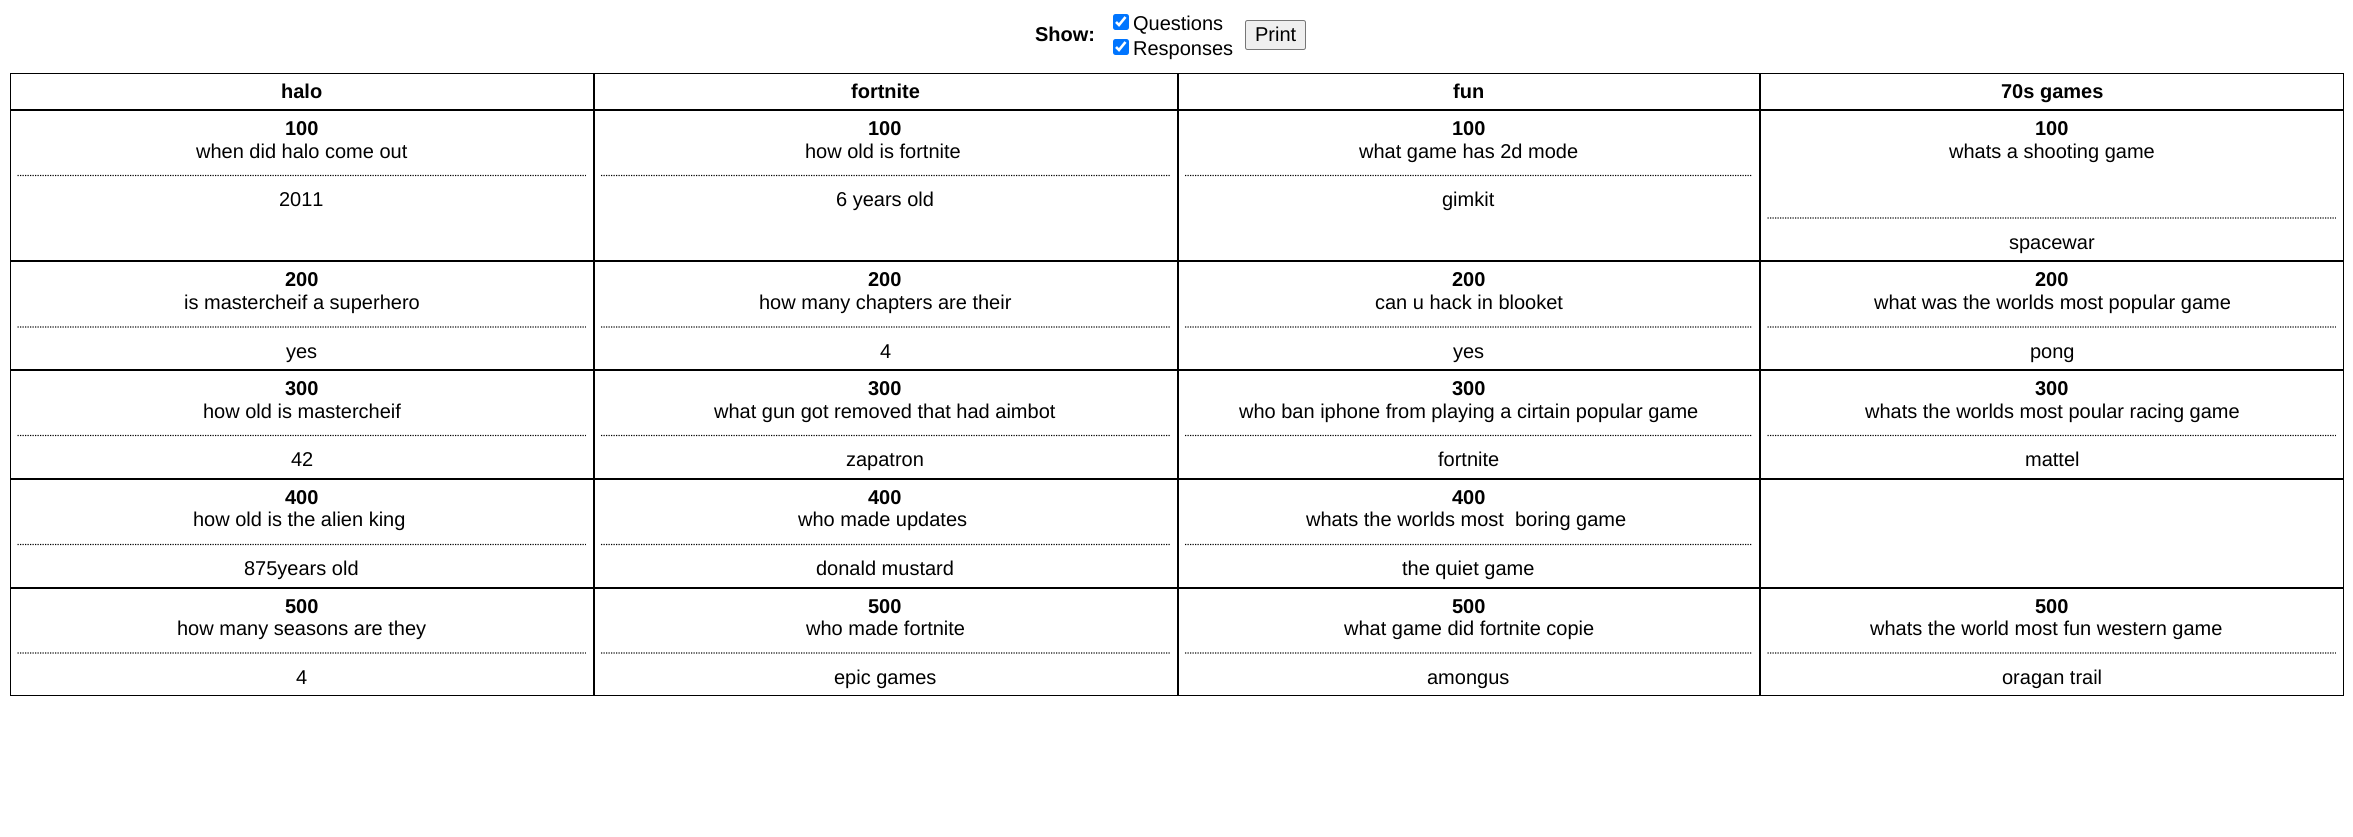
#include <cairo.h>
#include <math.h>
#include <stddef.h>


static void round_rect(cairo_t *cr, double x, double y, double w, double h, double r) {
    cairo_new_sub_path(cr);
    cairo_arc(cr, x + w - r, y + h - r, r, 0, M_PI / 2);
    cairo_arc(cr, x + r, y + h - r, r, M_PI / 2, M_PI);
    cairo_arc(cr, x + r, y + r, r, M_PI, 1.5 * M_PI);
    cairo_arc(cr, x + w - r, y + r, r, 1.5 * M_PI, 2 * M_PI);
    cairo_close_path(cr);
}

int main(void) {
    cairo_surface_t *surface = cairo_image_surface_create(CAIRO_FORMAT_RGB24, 2353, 837);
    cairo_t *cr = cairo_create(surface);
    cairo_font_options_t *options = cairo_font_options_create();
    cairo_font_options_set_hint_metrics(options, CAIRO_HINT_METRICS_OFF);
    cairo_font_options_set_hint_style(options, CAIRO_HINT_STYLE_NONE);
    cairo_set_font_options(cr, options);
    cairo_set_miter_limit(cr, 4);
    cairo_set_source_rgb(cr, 1, 1, 1);
    cairo_paint(cr);
    cairo_select_font_face(cr, "Liberation Sans", CAIRO_FONT_SLANT_NORMAL, CAIRO_FONT_WEIGHT_BOLD);
    cairo_set_font_size(cr, 20);
    cairo_set_source_rgb(cr, 0, 0, 0);
    cairo_move_to(cr, 1035, 41);
    cairo_show_text(cr, "Show:");
    cairo_set_source_rgb(cr, 0, 0.459, 1);
    round_rect(cr, 1113, 14, 16, 16, 2.5);
    cairo_fill(cr);
    cairo_new_path(cr);
    cairo_move_to(cr, 1116, 22);
    cairo_line_to(cr, 1119, 25);
    cairo_line_to(cr, 1125.5, 17);
    cairo_set_source_rgb(cr, 1, 1, 1);
    cairo_set_line_width(cr, 2.6);
    cairo_stroke(cr);
    cairo_select_font_face(cr, "Liberation Sans", CAIRO_FONT_SLANT_NORMAL, CAIRO_FONT_WEIGHT_NORMAL);
    cairo_set_source_rgb(cr, 0, 0, 0);
    cairo_move_to(cr, 1133, 30);
    cairo_show_text(cr, "Questions");
    cairo_set_source_rgb(cr, 0, 0.459, 1);
    round_rect(cr, 1113, 39, 16, 16, 2.5);
    cairo_fill(cr);
    cairo_new_path(cr);
    cairo_move_to(cr, 1116, 47);
    cairo_line_to(cr, 1119, 50);
    cairo_line_to(cr, 1125.5, 42);
    cairo_set_source_rgb(cr, 1, 1, 1);
    cairo_stroke(cr);
    cairo_set_source_rgb(cr, 0, 0, 0);
    cairo_move_to(cr, 1133, 55);
    cairo_show_text(cr, "Responses");
    cairo_set_source_rgb(cr, 0.937, 0.937, 0.937);
    round_rect(cr, 1245.5, 20.5, 60, 29, 2);
    cairo_fill_preserve(cr);
    cairo_set_source_rgb(cr, 0.463, 0.463, 0.463);
    cairo_set_line_width(cr, 1);
    cairo_stroke(cr);
    cairo_set_source_rgb(cr, 0, 0, 0);
    cairo_move_to(cr, 1255, 41);
    cairo_show_text(cr, "Print");
    cairo_rectangle(cr, 10.5, 73.5, 583, 36);
    cairo_stroke(cr);
    cairo_select_font_face(cr, "Liberation Sans", CAIRO_FONT_SLANT_NORMAL, CAIRO_FONT_WEIGHT_BOLD);
    cairo_move_to(cr, 281, 98);
    cairo_show_text(cr, "halo");
    cairo_rectangle(cr, 594.5, 73.5, 583, 36);
    cairo_stroke(cr);
    cairo_move_to(cr, 851, 98);
    cairo_show_text(cr, "fortnite");
    cairo_rectangle(cr, 1178.5, 73.5, 581, 36);
    cairo_stroke(cr);
    cairo_move_to(cr, 1453, 98);
    cairo_show_text(cr, "fun");
    cairo_rectangle(cr, 1760.5, 73.5, 583, 36);
    cairo_stroke(cr);
    cairo_move_to(cr, 2001, 98);
    cairo_show_text(cr, "70s games");
    cairo_rectangle(cr, 10.5, 110.5, 583, 150);
    cairo_stroke(cr);
    cairo_move_to(cr, 285, 135);
    cairo_show_text(cr, "100");
    cairo_select_font_face(cr, "Liberation Sans", CAIRO_FONT_SLANT_NORMAL, CAIRO_FONT_WEIGHT_NORMAL);
    cairo_move_to(cr, 196, 158);
    cairo_show_text(cr, "when did halo come out");
    cairo_new_path(cr);
    cairo_move_to(cr, 17.5, 175.5);
    cairo_line_to(cr, 586, 175.5);
    cairo_set_line_width(cr, 1.2);
    cairo_set_dash(cr, (double[]){1.25, 1.25}, 2, 0);
    cairo_stroke(cr);
    cairo_move_to(cr, 279, 206);
    cairo_show_text(cr, "2011");
    cairo_rectangle(cr, 594.5, 110.5, 583, 150);
    cairo_set_line_width(cr, 1);
    cairo_set_dash(cr, NULL, 0, 0);
    cairo_stroke(cr);
    cairo_select_font_face(cr, "Liberation Sans", CAIRO_FONT_SLANT_NORMAL, CAIRO_FONT_WEIGHT_BOLD);
    cairo_move_to(cr, 868, 135);
    cairo_show_text(cr, "100");
    cairo_select_font_face(cr, "Liberation Sans", CAIRO_FONT_SLANT_NORMAL, CAIRO_FONT_WEIGHT_NORMAL);
    cairo_move_to(cr, 805, 158);
    cairo_show_text(cr, "how old is fortnite");
    cairo_new_path(cr);
    cairo_move_to(cr, 601, 175.5);
    cairo_line_to(cr, 1170, 175.5);
    cairo_set_line_width(cr, 1.2);
    cairo_set_dash(cr, (double[]){1.25, 1.25}, 2, 0);
    cairo_stroke(cr);
    cairo_move_to(cr, 836, 206);
    cairo_show_text(cr, "6 years old");
    cairo_rectangle(cr, 1178.5, 110.5, 581, 150);
    cairo_set_line_width(cr, 1);
    cairo_set_dash(cr, NULL, 0, 0);
    cairo_stroke(cr);
    cairo_select_font_face(cr, "Liberation Sans", CAIRO_FONT_SLANT_NORMAL, CAIRO_FONT_WEIGHT_BOLD);
    cairo_move_to(cr, 1452, 135);
    cairo_show_text(cr, "100");
    cairo_select_font_face(cr, "Liberation Sans", CAIRO_FONT_SLANT_NORMAL, CAIRO_FONT_WEIGHT_NORMAL);
    cairo_move_to(cr, 1359, 158);
    cairo_show_text(cr, "what game has 2d mode");
    cairo_new_path(cr);
    cairo_move_to(cr, 1185, 175.5);
    cairo_line_to(cr, 1752.5, 175.5);
    cairo_set_line_width(cr, 1.2);
    cairo_set_dash(cr, (double[]){1.25, 1.25}, 2, 0);
    cairo_stroke(cr);
    cairo_move_to(cr, 1442, 206);
    cairo_show_text(cr, "gimkit");
    cairo_rectangle(cr, 1760.5, 110.5, 583, 150);
    cairo_set_line_width(cr, 1);
    cairo_set_dash(cr, NULL, 0, 0);
    cairo_stroke(cr);
    cairo_select_font_face(cr, "Liberation Sans", CAIRO_FONT_SLANT_NORMAL, CAIRO_FONT_WEIGHT_BOLD);
    cairo_move_to(cr, 2035, 135);
    cairo_show_text(cr, "100");
    cairo_select_font_face(cr, "Liberation Sans", CAIRO_FONT_SLANT_NORMAL, CAIRO_FONT_WEIGHT_NORMAL);
    cairo_move_to(cr, 1949, 158);
    cairo_show_text(cr, "whats a shooting game");
    cairo_new_path(cr);
    cairo_move_to(cr, 1767.5, 218);
    cairo_line_to(cr, 2336, 218);
    cairo_set_line_width(cr, 1.2);
    cairo_set_dash(cr, (double[]){1.25, 1.25}, 2, 0);
    cairo_stroke(cr);
    cairo_move_to(cr, 2009, 249);
    cairo_show_text(cr, "spacewar");
    cairo_rectangle(cr, 10.5, 261.5, 583, 108);
    cairo_set_line_width(cr, 1);
    cairo_set_dash(cr, NULL, 0, 0);
    cairo_stroke(cr);
    cairo_select_font_face(cr, "Liberation Sans", CAIRO_FONT_SLANT_NORMAL, CAIRO_FONT_WEIGHT_BOLD);
    cairo_move_to(cr, 285, 286);
    cairo_show_text(cr, "200");
    cairo_select_font_face(cr, "Liberation Sans", CAIRO_FONT_SLANT_NORMAL, CAIRO_FONT_WEIGHT_NORMAL);
    cairo_move_to(cr, 184, 309);
    cairo_show_text(cr, "is mastercheif a superhero");
    cairo_new_path(cr);
    cairo_move_to(cr, 17.5, 327);
    cairo_line_to(cr, 586, 327);
    cairo_set_line_width(cr, 1.2);
    cairo_set_dash(cr, (double[]){1.25, 1.25}, 2, 0);
    cairo_stroke(cr);
    cairo_move_to(cr, 286, 358);
    cairo_show_text(cr, "yes");
    cairo_rectangle(cr, 594.5, 261.5, 583, 108);
    cairo_set_line_width(cr, 1);
    cairo_set_dash(cr, NULL, 0, 0);
    cairo_stroke(cr);
    cairo_select_font_face(cr, "Liberation Sans", CAIRO_FONT_SLANT_NORMAL, CAIRO_FONT_WEIGHT_BOLD);
    cairo_move_to(cr, 868, 286);
    cairo_show_text(cr, "200");
    cairo_select_font_face(cr, "Liberation Sans", CAIRO_FONT_SLANT_NORMAL, CAIRO_FONT_WEIGHT_NORMAL);
    cairo_move_to(cr, 759, 309);
    cairo_show_text(cr, "how many chapters are their");
    cairo_new_path(cr);
    cairo_move_to(cr, 601, 327);
    cairo_line_to(cr, 1170, 327);
    cairo_set_line_width(cr, 1.2);
    cairo_set_dash(cr, (double[]){1.25, 1.25}, 2, 0);
    cairo_stroke(cr);
    cairo_move_to(cr, 880, 358);
    cairo_show_text(cr, "4");
    cairo_rectangle(cr, 1178.5, 261.5, 581, 108);
    cairo_set_line_width(cr, 1);
    cairo_set_dash(cr, NULL, 0, 0);
    cairo_stroke(cr);
    cairo_select_font_face(cr, "Liberation Sans", CAIRO_FONT_SLANT_NORMAL, CAIRO_FONT_WEIGHT_BOLD);
    cairo_move_to(cr, 1452, 286);
    cairo_show_text(cr, "200");
    cairo_select_font_face(cr, "Liberation Sans", CAIRO_FONT_SLANT_NORMAL, CAIRO_FONT_WEIGHT_NORMAL);
    cairo_move_to(cr, 1375, 309);
    cairo_show_text(cr, "can u hack in blooket");
    cairo_new_path(cr);
    cairo_move_to(cr, 1185, 327);
    cairo_line_to(cr, 1752.5, 327);
    cairo_set_line_width(cr, 1.2);
    cairo_set_dash(cr, (double[]){1.25, 1.25}, 2, 0);
    cairo_stroke(cr);
    cairo_move_to(cr, 1453, 358);
    cairo_show_text(cr, "yes");
    cairo_rectangle(cr, 1760.5, 261.5, 583, 108);
    cairo_set_line_width(cr, 1);
    cairo_set_dash(cr, NULL, 0, 0);
    cairo_stroke(cr);
    cairo_select_font_face(cr, "Liberation Sans", CAIRO_FONT_SLANT_NORMAL, CAIRO_FONT_WEIGHT_BOLD);
    cairo_move_to(cr, 2035, 286);
    cairo_show_text(cr, "200");
    cairo_select_font_face(cr, "Liberation Sans", CAIRO_FONT_SLANT_NORMAL, CAIRO_FONT_WEIGHT_NORMAL);
    cairo_move_to(cr, 1874, 309);
    cairo_show_text(cr, "what was the worlds most popular game");
    cairo_new_path(cr);
    cairo_move_to(cr, 1767.5, 327);
    cairo_line_to(cr, 2336, 327);
    cairo_set_line_width(cr, 1.2);
    cairo_set_dash(cr, (double[]){1.25, 1.25}, 2, 0);
    cairo_stroke(cr);
    cairo_move_to(cr, 2030, 358);
    cairo_show_text(cr, "pong");
    cairo_rectangle(cr, 10.5, 370.5, 583, 108);
    cairo_set_line_width(cr, 1);
    cairo_set_dash(cr, NULL, 0, 0);
    cairo_stroke(cr);
    cairo_select_font_face(cr, "Liberation Sans", CAIRO_FONT_SLANT_NORMAL, CAIRO_FONT_WEIGHT_BOLD);
    cairo_move_to(cr, 285, 395);
    cairo_show_text(cr, "300");
    cairo_select_font_face(cr, "Liberation Sans", CAIRO_FONT_SLANT_NORMAL, CAIRO_FONT_WEIGHT_NORMAL);
    cairo_move_to(cr, 203, 418);
    cairo_show_text(cr, "how old is mastercheif");
    cairo_new_path(cr);
    cairo_move_to(cr, 17.5, 435.5);
    cairo_line_to(cr, 586, 435.5);
    cairo_set_line_width(cr, 1.2);
    cairo_set_dash(cr, (double[]){1.25, 1.25}, 2, 0);
    cairo_stroke(cr);
    cairo_move_to(cr, 291, 466);
    cairo_show_text(cr, "42");
    cairo_rectangle(cr, 594.5, 370.5, 583, 108);
    cairo_set_line_width(cr, 1);
    cairo_set_dash(cr, NULL, 0, 0);
    cairo_stroke(cr);
    cairo_select_font_face(cr, "Liberation Sans", CAIRO_FONT_SLANT_NORMAL, CAIRO_FONT_WEIGHT_BOLD);
    cairo_move_to(cr, 868, 395);
    cairo_show_text(cr, "300");
    cairo_select_font_face(cr, "Liberation Sans", CAIRO_FONT_SLANT_NORMAL, CAIRO_FONT_WEIGHT_NORMAL);
    cairo_move_to(cr, 714, 418);
    cairo_show_text(cr, "what gun got removed that had aimbot");
    cairo_new_path(cr);
    cairo_move_to(cr, 601, 435.5);
    cairo_line_to(cr, 1170, 435.5);
    cairo_set_line_width(cr, 1.2);
    cairo_set_dash(cr, (double[]){1.25, 1.25}, 2, 0);
    cairo_stroke(cr);
    cairo_move_to(cr, 846, 466);
    cairo_show_text(cr, "zapatron");
    cairo_rectangle(cr, 1178.5, 370.5, 581, 108);
    cairo_set_line_width(cr, 1);
    cairo_set_dash(cr, NULL, 0, 0);
    cairo_stroke(cr);
    cairo_select_font_face(cr, "Liberation Sans", CAIRO_FONT_SLANT_NORMAL, CAIRO_FONT_WEIGHT_BOLD);
    cairo_move_to(cr, 1452, 395);
    cairo_show_text(cr, "300");
    cairo_select_font_face(cr, "Liberation Sans", CAIRO_FONT_SLANT_NORMAL, CAIRO_FONT_WEIGHT_NORMAL);
    cairo_move_to(cr, 1239, 418);
    cairo_show_text(cr, "who ban iphone from playing a cirtain popular game");
    cairo_new_path(cr);
    cairo_move_to(cr, 1185, 435.5);
    cairo_line_to(cr, 1752.5, 435.5);
    cairo_set_line_width(cr, 1.2);
    cairo_set_dash(cr, (double[]){1.25, 1.25}, 2, 0);
    cairo_stroke(cr);
    cairo_move_to(cr, 1438, 466);
    cairo_show_text(cr, "fortnite");
    cairo_rectangle(cr, 1760.5, 370.5, 583, 108);
    cairo_set_line_width(cr, 1);
    cairo_set_dash(cr, NULL, 0, 0);
    cairo_stroke(cr);
    cairo_select_font_face(cr, "Liberation Sans", CAIRO_FONT_SLANT_NORMAL, CAIRO_FONT_WEIGHT_BOLD);
    cairo_move_to(cr, 2035, 395);
    cairo_show_text(cr, "300");
    cairo_select_font_face(cr, "Liberation Sans", CAIRO_FONT_SLANT_NORMAL, CAIRO_FONT_WEIGHT_NORMAL);
    cairo_move_to(cr, 1865, 418);
    cairo_show_text(cr, "whats the worlds most poular racing game");
    cairo_new_path(cr);
    cairo_move_to(cr, 1767.5, 435.5);
    cairo_line_to(cr, 2336, 435.5);
    cairo_set_line_width(cr, 1.2);
    cairo_set_dash(cr, (double[]){1.25, 1.25}, 2, 0);
    cairo_stroke(cr);
    cairo_move_to(cr, 2025, 466);
    cairo_show_text(cr, "mattel");
    cairo_rectangle(cr, 10.5, 479.5, 583, 108);
    cairo_set_line_width(cr, 1);
    cairo_set_dash(cr, NULL, 0, 0);
    cairo_stroke(cr);
    cairo_select_font_face(cr, "Liberation Sans", CAIRO_FONT_SLANT_NORMAL, CAIRO_FONT_WEIGHT_BOLD);
    cairo_move_to(cr, 285, 504);
    cairo_show_text(cr, "400");
    cairo_select_font_face(cr, "Liberation Sans", CAIRO_FONT_SLANT_NORMAL, CAIRO_FONT_WEIGHT_NORMAL);
    cairo_move_to(cr, 193, 526);
    cairo_show_text(cr, "how old is the alien king");
    cairo_new_path(cr);
    cairo_move_to(cr, 17.5, 544.5);
    cairo_line_to(cr, 586, 544.5);
    cairo_set_line_width(cr, 1.2);
    cairo_set_dash(cr, (double[]){1.25, 1.25}, 2, 0);
    cairo_stroke(cr);
    cairo_move_to(cr, 244, 575);
    cairo_show_text(cr, "875years old");
    cairo_rectangle(cr, 594.5, 479.5, 583, 108);
    cairo_set_line_width(cr, 1);
    cairo_set_dash(cr, NULL, 0, 0);
    cairo_stroke(cr);
    cairo_select_font_face(cr, "Liberation Sans", CAIRO_FONT_SLANT_NORMAL, CAIRO_FONT_WEIGHT_BOLD);
    cairo_move_to(cr, 868, 504);
    cairo_show_text(cr, "400");
    cairo_select_font_face(cr, "Liberation Sans", CAIRO_FONT_SLANT_NORMAL, CAIRO_FONT_WEIGHT_NORMAL);
    cairo_move_to(cr, 798, 526);
    cairo_show_text(cr, "who made updates");
    cairo_new_path(cr);
    cairo_move_to(cr, 601, 544.5);
    cairo_line_to(cr, 1170, 544.5);
    cairo_set_line_width(cr, 1.2);
    cairo_set_dash(cr, (double[]){1.25, 1.25}, 2, 0);
    cairo_stroke(cr);
    cairo_move_to(cr, 816, 575);
    cairo_show_text(cr, "donald mustard");
    cairo_rectangle(cr, 1178.5, 479.5, 581, 108);
    cairo_set_line_width(cr, 1);
    cairo_set_dash(cr, NULL, 0, 0);
    cairo_stroke(cr);
    cairo_select_font_face(cr, "Liberation Sans", CAIRO_FONT_SLANT_NORMAL, CAIRO_FONT_WEIGHT_BOLD);
    cairo_move_to(cr, 1452, 504);
    cairo_show_text(cr, "400");
    cairo_select_font_face(cr, "Liberation Sans", CAIRO_FONT_SLANT_NORMAL, CAIRO_FONT_WEIGHT_NORMAL);
    cairo_move_to(cr, 1306, 526);
    cairo_show_text(cr, "whats the worlds most  boring game");
    cairo_new_path(cr);
    cairo_move_to(cr, 1185, 544.5);
    cairo_line_to(cr, 1752.5, 544.5);
    cairo_set_line_width(cr, 1.2);
    cairo_set_dash(cr, (double[]){1.25, 1.25}, 2, 0);
    cairo_stroke(cr);
    cairo_move_to(cr, 1402, 575);
    cairo_show_text(cr, "the quiet game");
    cairo_rectangle(cr, 1760.5, 479.5, 583, 108);
    cairo_set_line_width(cr, 1);
    cairo_set_dash(cr, NULL, 0, 0);
    cairo_stroke(cr);
    cairo_rectangle(cr, 10.5, 588.5, 583, 107);
    cairo_stroke(cr);
    cairo_select_font_face(cr, "Liberation Sans", CAIRO_FONT_SLANT_NORMAL, CAIRO_FONT_WEIGHT_BOLD);
    cairo_move_to(cr, 285, 613);
    cairo_show_text(cr, "500");
    cairo_select_font_face(cr, "Liberation Sans", CAIRO_FONT_SLANT_NORMAL, CAIRO_FONT_WEIGHT_NORMAL);
    cairo_move_to(cr, 177, 635);
    cairo_show_text(cr, "how many seasons are they");
    cairo_new_path(cr);
    cairo_move_to(cr, 17.5, 653);
    cairo_line_to(cr, 586, 653);
    cairo_set_line_width(cr, 1.2);
    cairo_set_dash(cr, (double[]){1.25, 1.25}, 2, 0);
    cairo_stroke(cr);
    cairo_move_to(cr, 296, 684);
    cairo_show_text(cr, "4");
    cairo_rectangle(cr, 594.5, 588.5, 583, 107);
    cairo_set_line_width(cr, 1);
    cairo_set_dash(cr, NULL, 0, 0);
    cairo_stroke(cr);
    cairo_select_font_face(cr, "Liberation Sans", CAIRO_FONT_SLANT_NORMAL, CAIRO_FONT_WEIGHT_BOLD);
    cairo_move_to(cr, 868, 613);
    cairo_show_text(cr, "500");
    cairo_select_font_face(cr, "Liberation Sans", CAIRO_FONT_SLANT_NORMAL, CAIRO_FONT_WEIGHT_NORMAL);
    cairo_move_to(cr, 806, 635);
    cairo_show_text(cr, "who made fortnite");
    cairo_new_path(cr);
    cairo_move_to(cr, 601, 653);
    cairo_line_to(cr, 1170, 653);
    cairo_set_line_width(cr, 1.2);
    cairo_set_dash(cr, (double[]){1.25, 1.25}, 2, 0);
    cairo_stroke(cr);
    cairo_move_to(cr, 834, 684);
    cairo_show_text(cr, "epic games");
    cairo_rectangle(cr, 1178.5, 588.5, 581, 107);
    cairo_set_line_width(cr, 1);
    cairo_set_dash(cr, NULL, 0, 0);
    cairo_stroke(cr);
    cairo_select_font_face(cr, "Liberation Sans", CAIRO_FONT_SLANT_NORMAL, CAIRO_FONT_WEIGHT_BOLD);
    cairo_move_to(cr, 1452, 613);
    cairo_show_text(cr, "500");
    cairo_select_font_face(cr, "Liberation Sans", CAIRO_FONT_SLANT_NORMAL, CAIRO_FONT_WEIGHT_NORMAL);
    cairo_move_to(cr, 1344, 635);
    cairo_show_text(cr, "what game did fortnite copie");
    cairo_new_path(cr);
    cairo_move_to(cr, 1185, 653);
    cairo_line_to(cr, 1752.5, 653);
    cairo_set_line_width(cr, 1.2);
    cairo_set_dash(cr, (double[]){1.25, 1.25}, 2, 0);
    cairo_stroke(cr);
    cairo_move_to(cr, 1427, 684);
    cairo_show_text(cr, "amongus");
    cairo_rectangle(cr, 1760.5, 588.5, 583, 107);
    cairo_set_line_width(cr, 1);
    cairo_set_dash(cr, NULL, 0, 0);
    cairo_stroke(cr);
    cairo_select_font_face(cr, "Liberation Sans", CAIRO_FONT_SLANT_NORMAL, CAIRO_FONT_WEIGHT_BOLD);
    cairo_move_to(cr, 2035, 613);
    cairo_show_text(cr, "500");
    cairo_select_font_face(cr, "Liberation Sans", CAIRO_FONT_SLANT_NORMAL, CAIRO_FONT_WEIGHT_NORMAL);
    cairo_move_to(cr, 1870, 635);
    cairo_show_text(cr, "whats the world most fun western game");
    cairo_new_path(cr);
    cairo_move_to(cr, 1767.5, 653);
    cairo_line_to(cr, 2336, 653);
    cairo_set_line_width(cr, 1.2);
    cairo_set_dash(cr, (double[]){1.25, 1.25}, 2, 0);
    cairo_stroke(cr);
    cairo_move_to(cr, 2002, 684);
    cairo_show_text(cr, "oragan trail");
    cairo_surface_write_to_png(surface, "page.png");
    cairo_font_options_destroy(options);
    cairo_destroy(cr);
    cairo_surface_destroy(surface);
    return 0;
}
